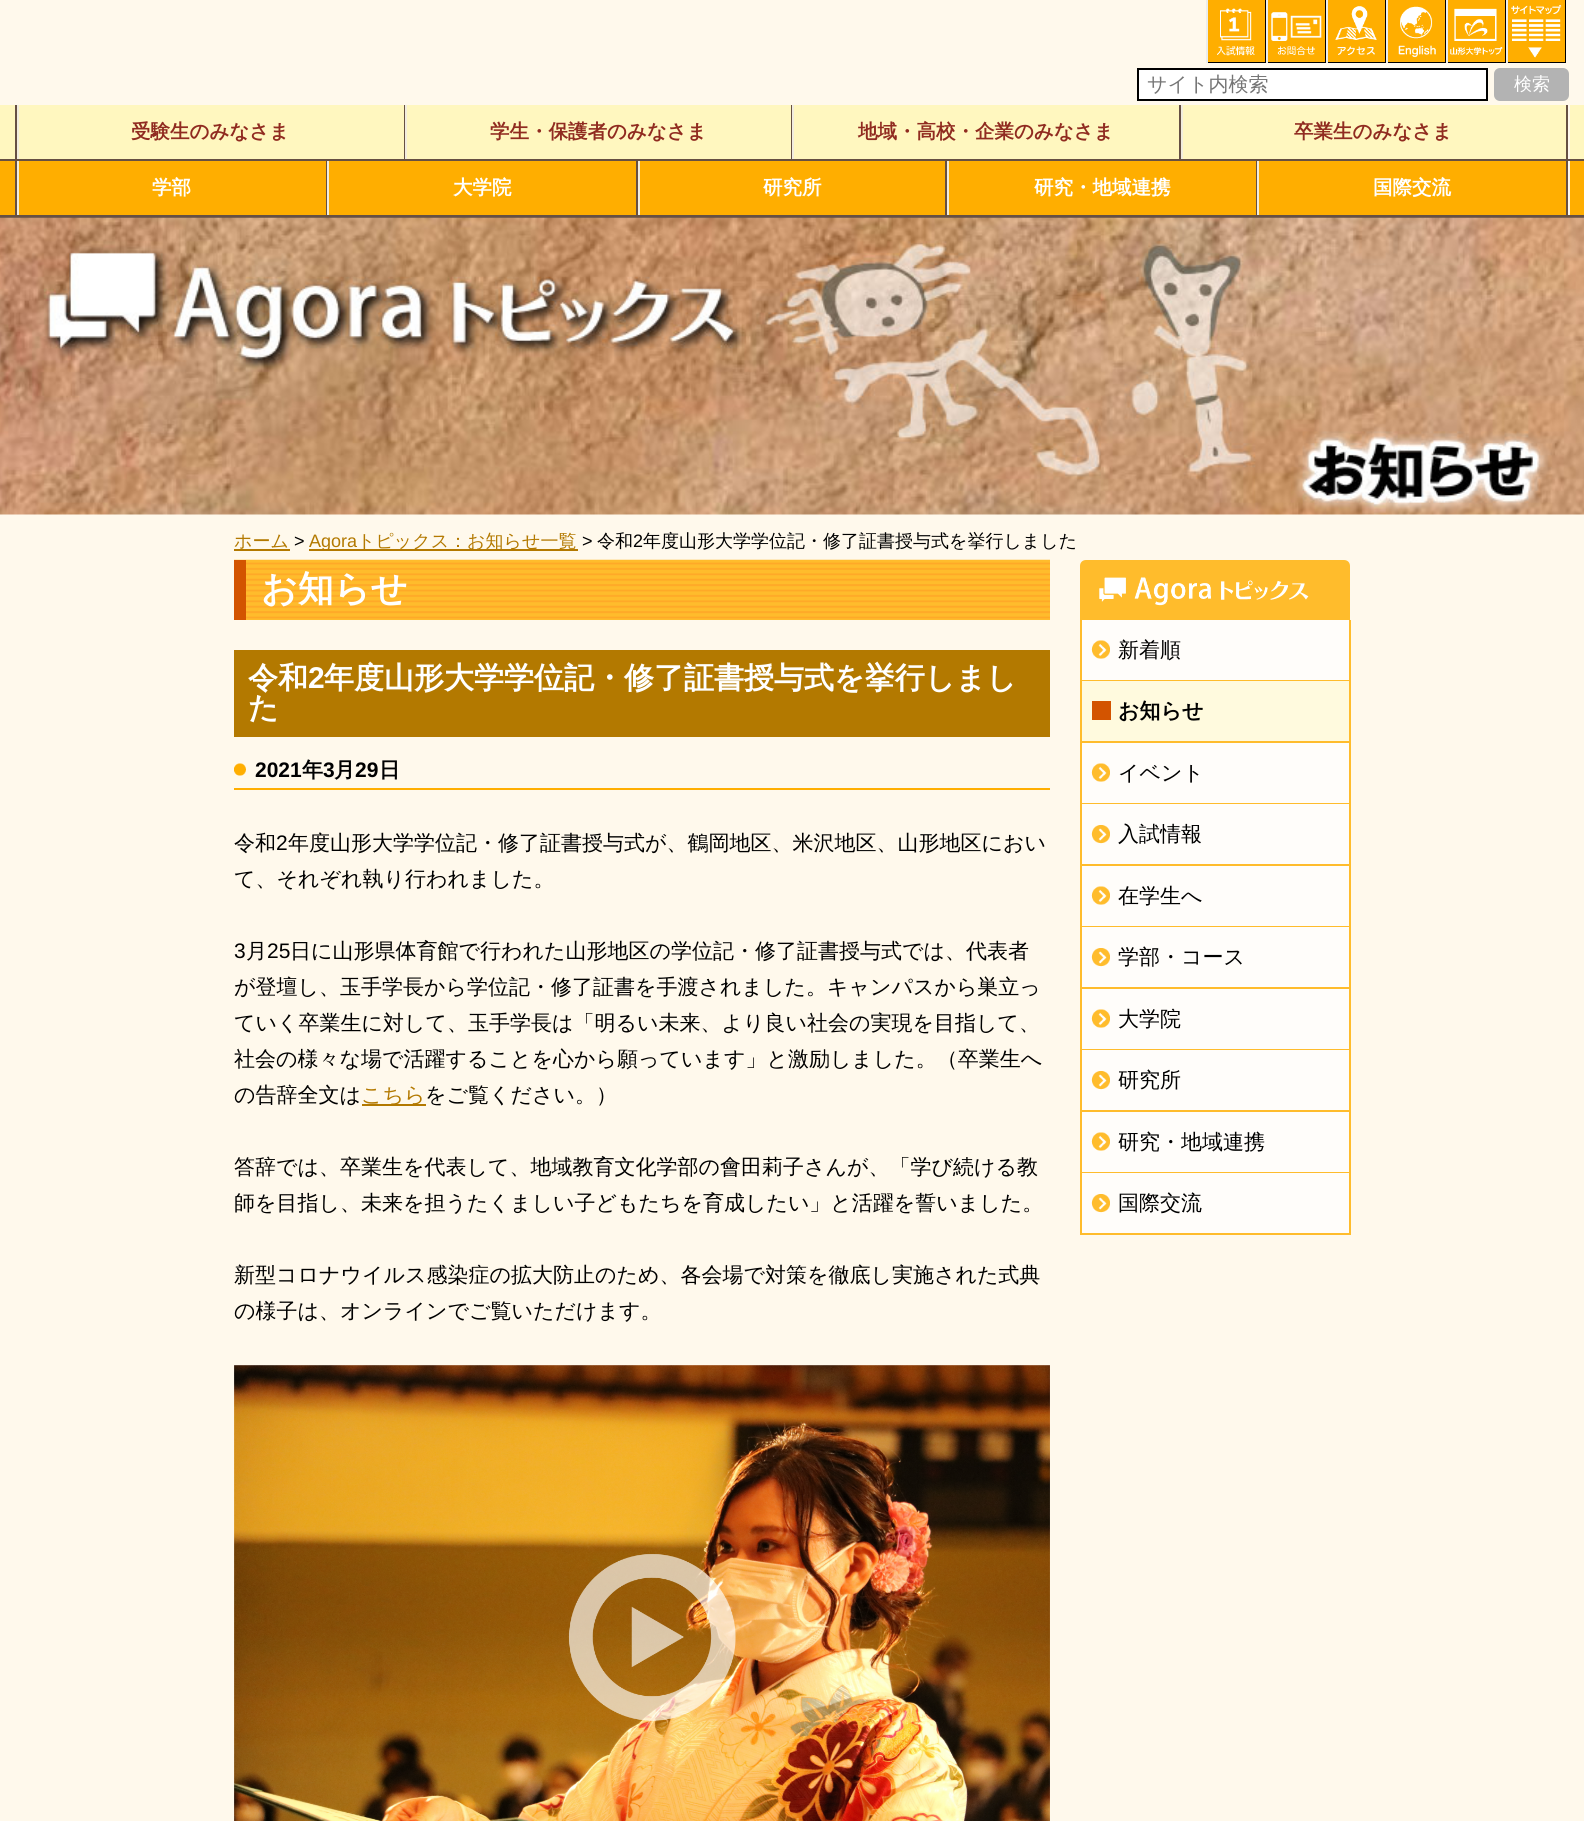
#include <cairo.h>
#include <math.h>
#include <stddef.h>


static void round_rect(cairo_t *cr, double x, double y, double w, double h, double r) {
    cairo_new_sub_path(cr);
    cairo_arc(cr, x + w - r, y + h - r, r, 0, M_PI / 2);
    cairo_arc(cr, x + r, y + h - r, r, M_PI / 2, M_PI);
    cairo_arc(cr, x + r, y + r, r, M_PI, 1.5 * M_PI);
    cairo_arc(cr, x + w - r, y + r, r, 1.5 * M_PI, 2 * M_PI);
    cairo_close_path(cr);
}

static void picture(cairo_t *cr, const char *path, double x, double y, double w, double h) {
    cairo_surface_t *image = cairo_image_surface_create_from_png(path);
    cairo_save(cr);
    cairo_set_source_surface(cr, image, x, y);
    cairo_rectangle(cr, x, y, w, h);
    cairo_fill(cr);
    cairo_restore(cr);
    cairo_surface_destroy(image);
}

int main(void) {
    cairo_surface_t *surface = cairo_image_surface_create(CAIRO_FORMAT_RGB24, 1584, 1821);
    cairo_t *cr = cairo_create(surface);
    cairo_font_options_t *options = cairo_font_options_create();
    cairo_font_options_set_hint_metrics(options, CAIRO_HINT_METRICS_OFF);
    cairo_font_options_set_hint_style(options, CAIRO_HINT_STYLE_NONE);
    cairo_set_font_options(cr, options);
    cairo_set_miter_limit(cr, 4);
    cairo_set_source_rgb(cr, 1, 0.973, 0.922);
    cairo_paint(cr);
    cairo_set_source_rgb(cr, 1, 0.682, 0);
    cairo_rectangle(cr, 1208, 0, 57, 62);
    cairo_fill(cr);
    picture(cr, "img1.png", 1217, 8, 38, 48);
    cairo_set_source_rgb(cr, 0, 0, 0);
    cairo_rectangle(cr, 1265, 0, 1, 63);
    cairo_fill(cr);
    cairo_rectangle(cr, 1206, 62, 60, 1);
    cairo_fill(cr);
    cairo_set_source_rgb(cr, 0.918, 0.929, 0.929);
    cairo_rectangle(cr, 1206, 0, 2, 63);
    cairo_fill(cr);
    cairo_set_source_rgb(cr, 1, 0.682, 0);
    cairo_rectangle(cr, 1268, 0, 57, 62);
    cairo_fill(cr);
    picture(cr, "img2.png", 1271, 12, 51, 44);
    cairo_set_source_rgb(cr, 0, 0, 0);
    cairo_rectangle(cr, 1325, 0, 1, 63);
    cairo_fill(cr);
    cairo_rectangle(cr, 1266, 62, 60, 1);
    cairo_fill(cr);
    cairo_set_source_rgb(cr, 0.918, 0.929, 0.929);
    cairo_rectangle(cr, 1266, 0, 2, 63);
    cairo_fill(cr);
    cairo_set_source_rgb(cr, 1, 0.682, 0);
    cairo_rectangle(cr, 1328, 0, 57, 62);
    cairo_fill(cr);
    picture(cr, "img3.png", 1335, 6, 42, 49);
    cairo_set_source_rgb(cr, 0, 0, 0);
    cairo_rectangle(cr, 1385, 0, 1, 63);
    cairo_fill(cr);
    cairo_rectangle(cr, 1326, 62, 60, 1);
    cairo_fill(cr);
    cairo_set_source_rgb(cr, 0.918, 0.929, 0.929);
    cairo_rectangle(cr, 1326, 0, 2, 63);
    cairo_fill(cr);
    cairo_set_source_rgb(cr, 1, 0.682, 0);
    cairo_rectangle(cr, 1388, 0, 57, 62);
    cairo_fill(cr);
    picture(cr, "img4.png", 1398, 6, 38, 52);
    cairo_set_source_rgb(cr, 0, 0, 0);
    cairo_rectangle(cr, 1445, 0, 1, 63);
    cairo_fill(cr);
    cairo_rectangle(cr, 1386, 62, 60, 1);
    cairo_fill(cr);
    cairo_set_source_rgb(cr, 0.918, 0.929, 0.929);
    cairo_rectangle(cr, 1386, 0, 2, 63);
    cairo_fill(cr);
    cairo_set_source_rgb(cr, 1, 0.682, 0);
    cairo_rectangle(cr, 1448, 0, 57, 62);
    cairo_fill(cr);
    picture(cr, "img5.png", 1450, 8, 53, 47);
    cairo_set_source_rgb(cr, 0, 0, 0);
    cairo_rectangle(cr, 1505, 0, 1, 63);
    cairo_fill(cr);
    cairo_rectangle(cr, 1446, 62, 60, 1);
    cairo_fill(cr);
    cairo_set_source_rgb(cr, 0.918, 0.929, 0.929);
    cairo_rectangle(cr, 1446, 0, 2, 63);
    cairo_fill(cr);
    cairo_set_source_rgb(cr, 1, 0.682, 0);
    cairo_rectangle(cr, 1508, 0, 57, 62);
    cairo_fill(cr);
    picture(cr, "img6.png", 1511, 5, 51, 53);
    cairo_set_source_rgb(cr, 0, 0, 0);
    cairo_rectangle(cr, 1565, 0, 1, 63);
    cairo_fill(cr);
    cairo_rectangle(cr, 1506, 62, 60, 1);
    cairo_fill(cr);
    cairo_set_source_rgb(cr, 0.918, 0.929, 0.929);
    cairo_rectangle(cr, 1506, 0, 2, 63);
    cairo_fill(cr);
    cairo_set_source_rgb(cr, 1, 1, 1);
    cairo_rectangle(cr, 1138, 69, 349, 31);
    cairo_fill_preserve(cr);
    cairo_set_source_rgb(cr, 0, 0, 0);
    cairo_stroke(cr);
    cairo_select_font_face(cr, "WenQuanYi Zen Hei Medium", CAIRO_FONT_SLANT_NORMAL, CAIRO_FONT_WEIGHT_NORMAL);
    cairo_set_font_size(cr, 20);
    cairo_set_source_rgb(cr, 0.459, 0.459, 0.459);
    cairo_move_to(cr, 1147, 91);
    cairo_show_text(cr, "サイト内検索");
    cairo_set_source_rgb(cr, 0.702, 0.702, 0.702);
    round_rect(cr, 1494, 68, 75, 33, 6);
    cairo_fill(cr);
    cairo_set_font_size(cr, 18);
    cairo_set_source_rgb(cr, 1, 1, 1);
    cairo_move_to(cr, 1514, 90);
    cairo_show_text(cr, "検索");
    cairo_set_source_rgb(cr, 1, 0.965, 0.749);
    cairo_rectangle(cr, 0, 105, 1584, 54);
    cairo_fill(cr);
    cairo_set_source_rgb(cr, 0.4, 0.314, 0.263);
    cairo_rectangle(cr, 0, 159, 1584, 2);
    cairo_fill(cr);
    cairo_set_source_rgb(cr, 1, 0.973, 0.922);
    cairo_rectangle(cr, 1568, 105, 2, 54);
    cairo_fill(cr);
    cairo_set_source_rgb(cr, 0.4, 0.314, 0.263);
    cairo_rectangle(cr, 15, 105, 2, 54);
    cairo_fill(cr);
    cairo_rectangle(cr, 404, 105, 1, 54);
    cairo_fill(cr);
    cairo_set_source_rgb(cr, 0.949, 0.929, 0.871);
    cairo_rectangle(cr, 17, 105, 2, 54);
    cairo_fill(cr);
    cairo_select_font_face(cr, "WenQuanYi Zen Hei", CAIRO_FONT_SLANT_NORMAL, CAIRO_FONT_WEIGHT_BOLD);
    cairo_set_font_size(cr, 19.5);
    cairo_set_source_rgb(cr, 0.565, 0.169, 0.125);
    cairo_move_to(cr, 131, 138);
    cairo_show_text(cr, "受験生のみなさま");
    cairo_set_source_rgb(cr, 0.4, 0.314, 0.263);
    cairo_rectangle(cr, 791, 105, 1, 54);
    cairo_fill(cr);
    cairo_set_source_rgb(cr, 0.949, 0.929, 0.871);
    cairo_rectangle(cr, 405, 105, 2, 54);
    cairo_fill(cr);
    cairo_set_source_rgb(cr, 0.565, 0.169, 0.125);
    cairo_move_to(cr, 490, 138);
    cairo_show_text(cr, "学生・保護者のみなさま");
    cairo_set_source_rgb(cr, 0.4, 0.314, 0.263);
    cairo_rectangle(cr, 1179, 105, 2, 54);
    cairo_fill(cr);
    cairo_set_source_rgb(cr, 0.949, 0.929, 0.871);
    cairo_rectangle(cr, 792, 105, 2, 54);
    cairo_fill(cr);
    cairo_set_source_rgb(cr, 0.565, 0.169, 0.125);
    cairo_move_to(cr, 858, 138);
    cairo_show_text(cr, "地域・高校・企業のみなさま");
    cairo_set_source_rgb(cr, 0.4, 0.314, 0.263);
    cairo_rectangle(cr, 1566, 105, 2, 54);
    cairo_fill(cr);
    cairo_set_source_rgb(cr, 0.949, 0.929, 0.871);
    cairo_rectangle(cr, 1181, 105, 2, 54);
    cairo_fill(cr);
    cairo_set_source_rgb(cr, 0.565, 0.169, 0.125);
    cairo_move_to(cr, 1294, 138);
    cairo_show_text(cr, "卒業生のみなさま");
    cairo_set_source_rgb(cr, 1, 0.682, 0);
    cairo_rectangle(cr, 0, 161, 1584, 54);
    cairo_fill(cr);
    cairo_set_source_rgb(cr, 0.4, 0.314, 0.263);
    cairo_rectangle(cr, 0, 215, 1584, 3);
    cairo_fill(cr);
    cairo_set_source_rgb(cr, 1, 0.973, 0.922);
    cairo_rectangle(cr, 1568, 161, 2, 54);
    cairo_fill(cr);
    cairo_set_source_rgb(cr, 0.4, 0.314, 0.263);
    cairo_rectangle(cr, 15, 161, 2, 54);
    cairo_fill(cr);
    cairo_rectangle(cr, 326, 161, 1, 54);
    cairo_fill(cr);
    cairo_set_source_rgb(cr, 0.949, 0.929, 0.871);
    cairo_rectangle(cr, 17, 161, 2, 54);
    cairo_fill(cr);
    cairo_set_source_rgb(cr, 1, 1, 1);
    cairo_move_to(cr, 152, 194);
    cairo_show_text(cr, "学部");
    cairo_set_source_rgb(cr, 0.4, 0.314, 0.263);
    cairo_rectangle(cr, 636, 161, 2, 54);
    cairo_fill(cr);
    cairo_set_source_rgb(cr, 0.949, 0.929, 0.871);
    cairo_rectangle(cr, 327, 161, 2, 54);
    cairo_fill(cr);
    cairo_set_source_rgb(cr, 1, 1, 1);
    cairo_move_to(cr, 453, 194);
    cairo_show_text(cr, "大学院");
    cairo_set_source_rgb(cr, 0.4, 0.314, 0.263);
    cairo_rectangle(cr, 945, 161, 2, 54);
    cairo_fill(cr);
    cairo_set_source_rgb(cr, 0.949, 0.929, 0.871);
    cairo_rectangle(cr, 638, 161, 2, 54);
    cairo_fill(cr);
    cairo_set_source_rgb(cr, 1, 1, 1);
    cairo_move_to(cr, 763, 194);
    cairo_show_text(cr, "研究所");
    cairo_set_source_rgb(cr, 0.4, 0.314, 0.263);
    cairo_rectangle(cr, 1256, 161, 1, 54);
    cairo_fill(cr);
    cairo_set_source_rgb(cr, 0.949, 0.929, 0.871);
    cairo_rectangle(cr, 947, 161, 2, 54);
    cairo_fill(cr);
    cairo_set_source_rgb(cr, 1, 1, 1);
    cairo_move_to(cr, 1034, 194);
    cairo_show_text(cr, "研究・地域連携");
    cairo_set_source_rgb(cr, 0.4, 0.314, 0.263);
    cairo_rectangle(cr, 1566, 161, 2, 54);
    cairo_fill(cr);
    cairo_set_source_rgb(cr, 0.949, 0.929, 0.871);
    cairo_rectangle(cr, 1257, 161, 2, 54);
    cairo_fill(cr);
    cairo_set_source_rgb(cr, 1, 1, 1);
    cairo_move_to(cr, 1373, 194);
    cairo_show_text(cr, "国際交流");
    picture(cr, "img7.png", 0, 217, 1584, 298);
    cairo_select_font_face(cr, "WenQuanYi Zen Hei Medium", CAIRO_FONT_SLANT_NORMAL, CAIRO_FONT_WEIGHT_NORMAL);
    cairo_set_font_size(cr, 18);
    cairo_set_source_rgb(cr, 0.702, 0.475, 0);
    cairo_move_to(cr, 234, 547);
    cairo_show_text(cr, "ホーム");
    cairo_rectangle(cr, 234, 549, 56, 2);
    cairo_fill(cr);
    cairo_select_font_face(cr, "Liberation Sans", CAIRO_FONT_SLANT_NORMAL, CAIRO_FONT_WEIGHT_NORMAL);
    cairo_set_source_rgb(cr, 0, 0, 0);
    cairo_move_to(cr, 294, 547);
    cairo_show_text(cr, ">");
    cairo_set_source_rgb(cr, 0.702, 0.475, 0);
    cairo_rectangle(cr, 309, 549, 269, 2);
    cairo_fill(cr);
    cairo_move_to(cr, 309, 547);
    cairo_show_text(cr, "Agora");
    cairo_select_font_face(cr, "WenQuanYi Zen Hei Medium", CAIRO_FONT_SLANT_NORMAL, CAIRO_FONT_WEIGHT_NORMAL);
    cairo_move_to(cr, 357, 547);
    cairo_show_text(cr, "トピックス：お知らせ一覧");
    cairo_select_font_face(cr, "Liberation Sans", CAIRO_FONT_SLANT_NORMAL, CAIRO_FONT_WEIGHT_NORMAL);
    cairo_set_source_rgb(cr, 0, 0, 0);
    cairo_move_to(cr, 582, 547);
    cairo_show_text(cr, ">");
    cairo_select_font_face(cr, "WenQuanYi Zen Hei Medium", CAIRO_FONT_SLANT_NORMAL, CAIRO_FONT_WEIGHT_NORMAL);
    cairo_move_to(cr, 597, 547);
    cairo_show_text(cr, "令和");
    cairo_select_font_face(cr, "Liberation Sans", CAIRO_FONT_SLANT_NORMAL, CAIRO_FONT_WEIGHT_NORMAL);
    cairo_move_to(cr, 633, 547);
    cairo_show_text(cr, "2");
    cairo_select_font_face(cr, "WenQuanYi Zen Hei Medium", CAIRO_FONT_SLANT_NORMAL, CAIRO_FONT_WEIGHT_NORMAL);
    cairo_move_to(cr, 643, 547);
    cairo_show_text(cr, "年度山形大学学位記・修了証書授与式を挙行しました");
    cairo_set_source_rgb(cr, 1, 0.737, 0.173);
    cairo_rectangle(cr, 246, 619, 804, 1);
    cairo_fill(cr);
    picture(cr, "img8.png", 234, 559, 816, 61);
    cairo_set_source_rgb(cr, 0.827, 0.329, 0);
    cairo_rectangle(cr, 234, 560, 12, 60);
    cairo_fill(cr);
    cairo_select_font_face(cr, "WenQuanYi Zen Hei", CAIRO_FONT_SLANT_NORMAL, CAIRO_FONT_WEIGHT_BOLD);
    cairo_set_font_size(cr, 36);
    cairo_set_source_rgb(cr, 1, 1, 1);
    cairo_move_to(cr, 261, 601);
    cairo_show_text(cr, "お知らせ");
    cairo_set_source_rgb(cr, 0.702, 0.475, 0);
    cairo_rectangle(cr, 234, 650, 816, 87);
    cairo_fill(cr);
    cairo_set_font_size(cr, 30);
    cairo_set_source_rgb(cr, 1, 1, 1);
    cairo_move_to(cr, 248, 688);
    cairo_show_text(cr, "令和");
    cairo_select_font_face(cr, "Liberation Sans", CAIRO_FONT_SLANT_NORMAL, CAIRO_FONT_WEIGHT_BOLD);
    cairo_move_to(cr, 308, 688);
    cairo_show_text(cr, "2");
    cairo_select_font_face(cr, "WenQuanYi Zen Hei", CAIRO_FONT_SLANT_NORMAL, CAIRO_FONT_WEIGHT_BOLD);
    cairo_move_to(cr, 324, 688);
    cairo_show_text(cr, "年度山形大学学位記・修了証書授与式を挙行しまし");
    cairo_move_to(cr, 248, 718);
    cairo_show_text(cr, "た");
    picture(cr, "img9.png", 234, 763, 12, 13);
    cairo_set_source_rgb(cr, 1, 0.682, 0);
    cairo_rectangle(cr, 234, 788, 816, 2);
    cairo_fill(cr);
    cairo_select_font_face(cr, "Liberation Sans", CAIRO_FONT_SLANT_NORMAL, CAIRO_FONT_WEIGHT_BOLD);
    cairo_set_font_size(cr, 21);
    cairo_set_source_rgb(cr, 0, 0, 0);
    cairo_move_to(cr, 255, 777);
    cairo_show_text(cr, "2021");
    cairo_select_font_face(cr, "WenQuanYi Zen Hei", CAIRO_FONT_SLANT_NORMAL, CAIRO_FONT_WEIGHT_BOLD);
    cairo_move_to(cr, 302, 777);
    cairo_show_text(cr, "年");
    cairo_select_font_face(cr, "Liberation Sans", CAIRO_FONT_SLANT_NORMAL, CAIRO_FONT_WEIGHT_BOLD);
    cairo_move_to(cr, 323, 777);
    cairo_show_text(cr, "3");
    cairo_select_font_face(cr, "WenQuanYi Zen Hei", CAIRO_FONT_SLANT_NORMAL, CAIRO_FONT_WEIGHT_BOLD);
    cairo_move_to(cr, 334, 777);
    cairo_show_text(cr, "月");
    cairo_select_font_face(cr, "Liberation Sans", CAIRO_FONT_SLANT_NORMAL, CAIRO_FONT_WEIGHT_BOLD);
    cairo_move_to(cr, 355, 777);
    cairo_show_text(cr, "29");
    cairo_select_font_face(cr, "WenQuanYi Zen Hei", CAIRO_FONT_SLANT_NORMAL, CAIRO_FONT_WEIGHT_BOLD);
    cairo_move_to(cr, 379, 777);
    cairo_show_text(cr, "日");
    cairo_select_font_face(cr, "WenQuanYi Zen Hei Medium", CAIRO_FONT_SLANT_NORMAL, CAIRO_FONT_WEIGHT_NORMAL);
    cairo_move_to(cr, 234, 850);
    cairo_show_text(cr, "令和");
    cairo_select_font_face(cr, "Liberation Sans", CAIRO_FONT_SLANT_NORMAL, CAIRO_FONT_WEIGHT_NORMAL);
    cairo_move_to(cr, 276, 850);
    cairo_show_text(cr, "2");
    cairo_select_font_face(cr, "WenQuanYi Zen Hei Medium", CAIRO_FONT_SLANT_NORMAL, CAIRO_FONT_WEIGHT_NORMAL);
    cairo_move_to(cr, 288, 850);
    cairo_show_text(cr, "年度山形大学学位記・修了証書授与式が、鶴岡地区、米沢地区、山形地区におい");
    cairo_move_to(cr, 234, 886);
    cairo_show_text(cr, "て、それぞれ執り行われました。");
    cairo_select_font_face(cr, "Liberation Sans", CAIRO_FONT_SLANT_NORMAL, CAIRO_FONT_WEIGHT_NORMAL);
    cairo_move_to(cr, 234, 958);
    cairo_show_text(cr, "3");
    cairo_select_font_face(cr, "WenQuanYi Zen Hei Medium", CAIRO_FONT_SLANT_NORMAL, CAIRO_FONT_WEIGHT_NORMAL);
    cairo_move_to(cr, 246, 958);
    cairo_show_text(cr, "月");
    cairo_select_font_face(cr, "Liberation Sans", CAIRO_FONT_SLANT_NORMAL, CAIRO_FONT_WEIGHT_NORMAL);
    cairo_move_to(cr, 267, 958);
    cairo_show_text(cr, "25");
    cairo_select_font_face(cr, "WenQuanYi Zen Hei Medium", CAIRO_FONT_SLANT_NORMAL, CAIRO_FONT_WEIGHT_NORMAL);
    cairo_move_to(cr, 290, 958);
    cairo_show_text(cr, "日に山形県体育館で行われた山形地区の学位記・修了証書授与式では、代表者");
    cairo_move_to(cr, 234, 994);
    cairo_show_text(cr, "が登壇し、玉手学長から学位記・修了証書を手渡されました。キャンパスから巣立っ");
    cairo_move_to(cr, 234, 1030);
    cairo_show_text(cr, "ていく卒業生に対して、玉手学長は「明るい未来、より良い社会の実現を目指して、");
    cairo_move_to(cr, 234, 1066);
    cairo_show_text(cr, "社会の様々な場で活躍することを心から願っています」と激励しました。（卒業生へ");
    cairo_move_to(cr, 234, 1102);
    cairo_show_text(cr, "の告辞全文は");
    cairo_set_source_rgb(cr, 0.702, 0.475, 0);
    cairo_rectangle(cr, 362, 1104, 64, 2);
    cairo_fill(cr);
    cairo_move_to(cr, 361, 1102);
    cairo_show_text(cr, "こちら");
    cairo_set_source_rgb(cr, 0, 0, 0);
    cairo_move_to(cr, 425, 1102);
    cairo_show_text(cr, "をご覧ください。）");
    cairo_move_to(cr, 234, 1174);
    cairo_show_text(cr, "答辞では、卒業生を代表して、地域教育文化学部の會田莉子さんが、「学び続ける教");
    cairo_move_to(cr, 234, 1210);
    cairo_show_text(cr, "師を目指し、未来を担うたくましい子どもたちを育成したい」と活躍を誓いました。");
    cairo_move_to(cr, 234, 1282);
    cairo_show_text(cr, "新型コロナウイルス感染症の拡大防止のため、各会場で対策を徹底し実施された式典");
    cairo_move_to(cr, 234, 1318);
    cairo_show_text(cr, "の様子は、オンラインでご覧いただけます。");
    picture(cr, "img10.png", 234, 1365, 816, 456);
    cairo_set_source_rgb(cr, 1, 0.737, 0.173);
    cairo_new_path(cr);
    cairo_move_to(cr, 1086, 560);
    cairo_line_to(cr, 1344, 560);
    cairo_curve_to(cr, 1347.5, 560, 1350, 562.5, 1350, 566);
    cairo_line_to(cr, 1350, 620);
    cairo_line_to(cr, 1080, 620);
    cairo_line_to(cr, 1080, 566);
    cairo_curve_to(cr, 1080, 562.5, 1082.5, 560, 1086, 560);
    cairo_close_path(cr);
    cairo_fill(cr);
    picture(cr, "img11.png", 1099, 577, 210, 29);
    cairo_set_source_rgb(cr, 1, 0.992, 0.98);
    cairo_rectangle(cr, 1082, 620, 267, 60);
    cairo_fill(cr);
    picture(cr, "img12.png", 1091, 640, 19, 19);
    cairo_set_source_rgb(cr, 1, 0.737, 0.173);
    cairo_rectangle(cr, 1349, 620, 2, 615);
    cairo_fill(cr);
    cairo_rectangle(cr, 1080, 680, 270, 1);
    cairo_fill(cr);
    cairo_rectangle(cr, 1080, 620, 2, 61);
    cairo_fill(cr);
    cairo_set_source_rgb(cr, 0, 0, 0);
    cairo_move_to(cr, 1118, 657);
    cairo_show_text(cr, "新着順");
    cairo_set_source_rgb(cr, 1, 0.98, 0.871);
    cairo_rectangle(cr, 1082, 681, 267, 60);
    cairo_fill(cr);
    cairo_set_source_rgb(cr, 0.827, 0.329, 0);
    cairo_rectangle(cr, 1092, 701, 19, 19);
    cairo_fill(cr);
    cairo_set_source_rgb(cr, 1, 0.737, 0.173);
    cairo_rectangle(cr, 1080, 741, 270, 2);
    cairo_fill(cr);
    cairo_rectangle(cr, 1080, 681, 2, 62);
    cairo_fill(cr);
    cairo_select_font_face(cr, "WenQuanYi Zen Hei", CAIRO_FONT_SLANT_NORMAL, CAIRO_FONT_WEIGHT_BOLD);
    cairo_set_source_rgb(cr, 0, 0, 0);
    cairo_move_to(cr, 1118, 718);
    cairo_show_text(cr, "お知らせ");
    cairo_set_source_rgb(cr, 1, 0.992, 0.98);
    cairo_rectangle(cr, 1082, 743, 267, 60);
    cairo_fill(cr);
    picture(cr, "img12.png", 1091, 763, 19, 19);
    cairo_set_source_rgb(cr, 1, 0.737, 0.173);
    cairo_rectangle(cr, 1080, 803, 270, 1);
    cairo_fill(cr);
    cairo_rectangle(cr, 1080, 743, 2, 61);
    cairo_fill(cr);
    cairo_select_font_face(cr, "WenQuanYi Zen Hei Medium", CAIRO_FONT_SLANT_NORMAL, CAIRO_FONT_WEIGHT_NORMAL);
    cairo_set_source_rgb(cr, 0, 0, 0);
    cairo_move_to(cr, 1118, 780);
    cairo_show_text(cr, "イベント");
    cairo_set_source_rgb(cr, 1, 0.992, 0.98);
    cairo_rectangle(cr, 1082, 804, 267, 60);
    cairo_fill(cr);
    picture(cr, "img13.png", 1091, 825, 19, 19);
    cairo_set_source_rgb(cr, 1, 0.737, 0.173);
    cairo_rectangle(cr, 1080, 864, 270, 2);
    cairo_fill(cr);
    cairo_rectangle(cr, 1080, 804, 2, 62);
    cairo_fill(cr);
    cairo_set_source_rgb(cr, 0, 0, 0);
    cairo_move_to(cr, 1118, 841);
    cairo_show_text(cr, "入試情報");
    cairo_set_source_rgb(cr, 1, 0.992, 0.98);
    cairo_rectangle(cr, 1082, 866, 267, 60);
    cairo_fill(cr);
    picture(cr, "img12.png", 1091, 886, 19, 19);
    cairo_set_source_rgb(cr, 1, 0.737, 0.173);
    cairo_rectangle(cr, 1080, 926, 270, 1);
    cairo_fill(cr);
    cairo_rectangle(cr, 1080, 866, 2, 61);
    cairo_fill(cr);
    cairo_set_source_rgb(cr, 0, 0, 0);
    cairo_move_to(cr, 1118, 903);
    cairo_show_text(cr, "在学生へ");
    cairo_set_source_rgb(cr, 1, 0.992, 0.98);
    cairo_rectangle(cr, 1082, 927, 267, 60);
    cairo_fill(cr);
    picture(cr, "img13.png", 1091, 948, 19, 19);
    cairo_set_source_rgb(cr, 1, 0.737, 0.173);
    cairo_rectangle(cr, 1080, 987, 270, 2);
    cairo_fill(cr);
    cairo_rectangle(cr, 1080, 927, 2, 62);
    cairo_fill(cr);
    cairo_set_source_rgb(cr, 0, 0, 0);
    cairo_move_to(cr, 1118, 964);
    cairo_show_text(cr, "学部・コース");
    cairo_set_source_rgb(cr, 1, 0.992, 0.98);
    cairo_rectangle(cr, 1082, 989, 267, 60);
    cairo_fill(cr);
    picture(cr, "img12.png", 1091, 1009, 19, 19);
    cairo_set_source_rgb(cr, 1, 0.737, 0.173);
    cairo_rectangle(cr, 1080, 1049, 270, 1);
    cairo_fill(cr);
    cairo_rectangle(cr, 1080, 989, 2, 61);
    cairo_fill(cr);
    cairo_set_source_rgb(cr, 0, 0, 0);
    cairo_move_to(cr, 1118, 1026);
    cairo_show_text(cr, "大学院");
    cairo_set_source_rgb(cr, 1, 0.992, 0.98);
    cairo_rectangle(cr, 1082, 1050, 267, 60);
    cairo_fill(cr);
    picture(cr, "img13.png", 1091, 1071, 19, 19);
    cairo_set_source_rgb(cr, 1, 0.737, 0.173);
    cairo_rectangle(cr, 1080, 1110, 270, 2);
    cairo_fill(cr);
    cairo_rectangle(cr, 1080, 1050, 2, 62);
    cairo_fill(cr);
    cairo_set_source_rgb(cr, 0, 0, 0);
    cairo_move_to(cr, 1118, 1087);
    cairo_show_text(cr, "研究所");
    cairo_set_source_rgb(cr, 1, 0.992, 0.98);
    cairo_rectangle(cr, 1082, 1112, 267, 60);
    cairo_fill(cr);
    picture(cr, "img12.png", 1091, 1132, 19, 19);
    cairo_set_source_rgb(cr, 1, 0.737, 0.173);
    cairo_rectangle(cr, 1080, 1172, 270, 1);
    cairo_fill(cr);
    cairo_rectangle(cr, 1080, 1112, 2, 61);
    cairo_fill(cr);
    cairo_set_source_rgb(cr, 0, 0, 0);
    cairo_move_to(cr, 1118, 1149);
    cairo_show_text(cr, "研究・地域連携");
    cairo_set_source_rgb(cr, 1, 0.992, 0.98);
    cairo_rectangle(cr, 1082, 1173, 267, 60);
    cairo_fill(cr);
    picture(cr, "img13.png", 1091, 1194, 19, 19);
    cairo_set_source_rgb(cr, 1, 0.737, 0.173);
    cairo_rectangle(cr, 1080, 1233, 270, 2);
    cairo_fill(cr);
    cairo_rectangle(cr, 1080, 1173, 2, 62);
    cairo_fill(cr);
    cairo_set_source_rgb(cr, 0, 0, 0);
    cairo_move_to(cr, 1118, 1210);
    cairo_show_text(cr, "国際交流");
    cairo_surface_write_to_png(surface, "page.png");
    cairo_font_options_destroy(options);
    cairo_destroy(cr);
    cairo_surface_destroy(surface);
    return 0;
}
